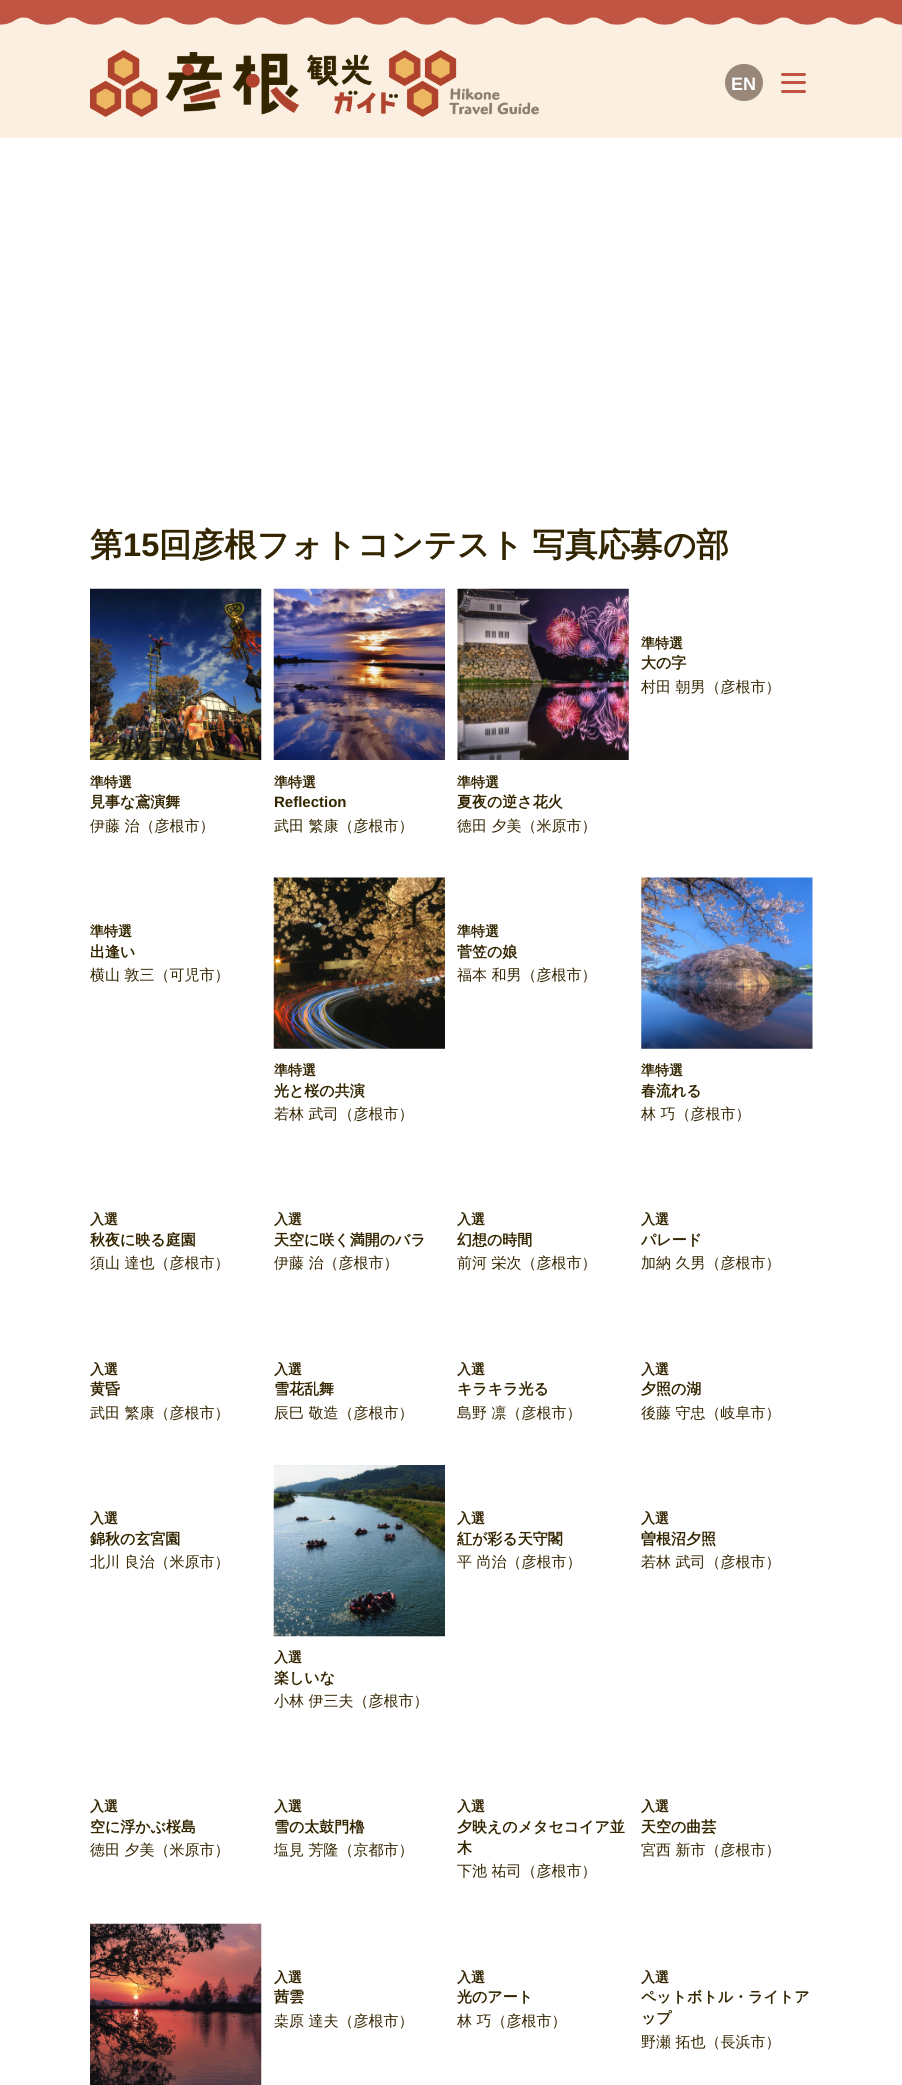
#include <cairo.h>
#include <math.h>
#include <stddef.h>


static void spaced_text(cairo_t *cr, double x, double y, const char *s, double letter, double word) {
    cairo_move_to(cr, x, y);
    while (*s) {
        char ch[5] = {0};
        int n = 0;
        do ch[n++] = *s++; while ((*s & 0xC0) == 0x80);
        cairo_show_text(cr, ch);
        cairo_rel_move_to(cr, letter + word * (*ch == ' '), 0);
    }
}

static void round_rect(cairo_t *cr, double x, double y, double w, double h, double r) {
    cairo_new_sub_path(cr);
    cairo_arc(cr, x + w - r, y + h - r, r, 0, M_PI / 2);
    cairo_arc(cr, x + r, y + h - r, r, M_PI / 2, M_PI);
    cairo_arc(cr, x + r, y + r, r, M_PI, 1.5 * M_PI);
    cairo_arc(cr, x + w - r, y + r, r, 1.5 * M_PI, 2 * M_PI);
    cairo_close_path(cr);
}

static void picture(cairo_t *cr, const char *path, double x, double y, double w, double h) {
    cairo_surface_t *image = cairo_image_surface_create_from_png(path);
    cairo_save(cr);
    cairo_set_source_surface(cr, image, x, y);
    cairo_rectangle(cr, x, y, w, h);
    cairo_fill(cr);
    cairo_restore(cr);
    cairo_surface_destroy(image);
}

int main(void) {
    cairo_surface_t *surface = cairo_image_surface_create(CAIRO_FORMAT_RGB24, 902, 2085);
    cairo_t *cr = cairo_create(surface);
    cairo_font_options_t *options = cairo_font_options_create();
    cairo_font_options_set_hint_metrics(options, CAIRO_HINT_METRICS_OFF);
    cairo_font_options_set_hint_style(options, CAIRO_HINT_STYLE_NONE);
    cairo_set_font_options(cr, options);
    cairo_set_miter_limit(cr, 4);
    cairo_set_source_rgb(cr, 1, 1, 1);
    cairo_paint(cr);
    cairo_set_source_rgb(cr, 0.984, 0.937, 0.882);
    cairo_rectangle(cr, 0, 17, 902, 121);
    cairo_fill(cr);
    picture(cr, "img1.png", 0, 0, 902, 25);
    picture(cr, "img2.png", 90, 50, 449, 67);
    cairo_set_source_rgb(cr, 0.6, 0.529, 0.475);
    round_rect(cr, 725, 64, 38, 37, 18.5);
    cairo_fill(cr);
    cairo_select_font_face(cr, "Liberation Sans", CAIRO_FONT_SLANT_NORMAL, CAIRO_FONT_WEIGHT_BOLD);
    cairo_set_font_size(cr, 18);
    cairo_set_source_rgb(cr, 1, 1, 1);
    cairo_move_to(cr, 731, 90);
    cairo_show_text(cr, "EN");
    cairo_set_source_rgb(cr, 0.753, 0.333, 0.267);
    round_rect(cr, 781, 81, 25, 3, 1.5);
    cairo_fill(cr);
    round_rect(cr, 781, 73, 25, 3, 1.5);
    cairo_fill(cr);
    round_rect(cr, 781, 90, 25, 3, 1.5);
    cairo_fill(cr);
    cairo_select_font_face(cr, "WenQuanYi Zen Hei", CAIRO_FONT_SLANT_NORMAL, CAIRO_FONT_WEIGHT_BOLD);
    cairo_set_font_size(cr, 32.6);
    cairo_set_source_rgb(cr, 0.2, 0.145, 0);
    cairo_move_to(cr, 90, 556);
    cairo_show_text(cr, "第");
    cairo_select_font_face(cr, "Liberation Sans", CAIRO_FONT_SLANT_NORMAL, CAIRO_FONT_WEIGHT_BOLD);
    cairo_move_to(cr, 123, 556);
    cairo_show_text(cr, "15");
    cairo_select_font_face(cr, "WenQuanYi Zen Hei", CAIRO_FONT_SLANT_NORMAL, CAIRO_FONT_WEIGHT_BOLD);
    spaced_text(cr, 159, 556, "回彦根フォトコンテスト 写真応募の部", 0, -1);
    cairo_set_font_size(cr, 14);
    cairo_move_to(cr, 641, 648);
    cairo_show_text(cr, "準特選");
    cairo_set_font_size(cr, 15);
    cairo_move_to(cr, 641, 668);
    cairo_show_text(cr, "大の字");
    cairo_select_font_face(cr, "WenQuanYi Zen Hei Medium", CAIRO_FONT_SLANT_NORMAL, CAIRO_FONT_WEIGHT_NORMAL);
    cairo_move_to(cr, 641, 692);
    cairo_show_text(cr, "村田 朝男（彦根市）");
    picture(cr, "img3.png", 90, 588, 172, 172);
    cairo_select_font_face(cr, "WenQuanYi Zen Hei", CAIRO_FONT_SLANT_NORMAL, CAIRO_FONT_WEIGHT_BOLD);
    cairo_set_font_size(cr, 14);
    cairo_move_to(cr, 90, 787);
    cairo_show_text(cr, "準特選");
    cairo_set_font_size(cr, 15);
    cairo_move_to(cr, 90, 807);
    cairo_show_text(cr, "見事な鳶演舞");
    cairo_select_font_face(cr, "WenQuanYi Zen Hei Medium", CAIRO_FONT_SLANT_NORMAL, CAIRO_FONT_WEIGHT_NORMAL);
    cairo_move_to(cr, 90, 831);
    cairo_show_text(cr, "伊藤 治（彦根市）");
    picture(cr, "img4.png", 273, 588, 172, 172);
    cairo_select_font_face(cr, "WenQuanYi Zen Hei", CAIRO_FONT_SLANT_NORMAL, CAIRO_FONT_WEIGHT_BOLD);
    cairo_set_font_size(cr, 14);
    cairo_move_to(cr, 274, 787);
    cairo_show_text(cr, "準特選");
    cairo_select_font_face(cr, "Liberation Sans", CAIRO_FONT_SLANT_NORMAL, CAIRO_FONT_WEIGHT_BOLD);
    cairo_set_font_size(cr, 15);
    cairo_move_to(cr, 274, 807);
    cairo_show_text(cr, "Reflection");
    cairo_select_font_face(cr, "WenQuanYi Zen Hei Medium", CAIRO_FONT_SLANT_NORMAL, CAIRO_FONT_WEIGHT_NORMAL);
    cairo_move_to(cr, 274, 831);
    cairo_show_text(cr, "武田 繁康（彦根市）");
    picture(cr, "img5.png", 457, 588, 172, 172);
    cairo_select_font_face(cr, "WenQuanYi Zen Hei", CAIRO_FONT_SLANT_NORMAL, CAIRO_FONT_WEIGHT_BOLD);
    cairo_set_font_size(cr, 14);
    cairo_move_to(cr, 457, 787);
    cairo_show_text(cr, "準特選");
    cairo_set_font_size(cr, 15);
    cairo_move_to(cr, 457, 807);
    cairo_show_text(cr, "夏夜の逆さ花火");
    cairo_select_font_face(cr, "WenQuanYi Zen Hei Medium", CAIRO_FONT_SLANT_NORMAL, CAIRO_FONT_WEIGHT_NORMAL);
    cairo_move_to(cr, 457, 831);
    cairo_show_text(cr, "徳田 夕美（米原市）");
    cairo_select_font_face(cr, "WenQuanYi Zen Hei", CAIRO_FONT_SLANT_NORMAL, CAIRO_FONT_WEIGHT_BOLD);
    cairo_set_font_size(cr, 14);
    cairo_move_to(cr, 90, 936);
    cairo_show_text(cr, "準特選");
    cairo_set_font_size(cr, 15);
    cairo_move_to(cr, 90, 957);
    cairo_show_text(cr, "出逢い");
    cairo_select_font_face(cr, "WenQuanYi Zen Hei Medium", CAIRO_FONT_SLANT_NORMAL, CAIRO_FONT_WEIGHT_NORMAL);
    cairo_move_to(cr, 90, 980);
    cairo_show_text(cr, "横山 敦三（可児市）");
    cairo_select_font_face(cr, "WenQuanYi Zen Hei", CAIRO_FONT_SLANT_NORMAL, CAIRO_FONT_WEIGHT_BOLD);
    cairo_set_font_size(cr, 14);
    cairo_move_to(cr, 457, 936);
    cairo_show_text(cr, "準特選");
    cairo_set_font_size(cr, 15);
    cairo_move_to(cr, 457, 957);
    cairo_show_text(cr, "菅笠の娘");
    cairo_select_font_face(cr, "WenQuanYi Zen Hei Medium", CAIRO_FONT_SLANT_NORMAL, CAIRO_FONT_WEIGHT_NORMAL);
    cairo_move_to(cr, 457, 980);
    cairo_show_text(cr, "福本 和男（彦根市）");
    picture(cr, "img6.png", 273, 877, 172, 172);
    cairo_select_font_face(cr, "WenQuanYi Zen Hei", CAIRO_FONT_SLANT_NORMAL, CAIRO_FONT_WEIGHT_BOLD);
    cairo_set_font_size(cr, 14);
    cairo_move_to(cr, 274, 1075);
    cairo_show_text(cr, "準特選");
    cairo_set_font_size(cr, 15);
    cairo_move_to(cr, 274, 1096);
    cairo_show_text(cr, "光と桜の共演");
    cairo_select_font_face(cr, "WenQuanYi Zen Hei Medium", CAIRO_FONT_SLANT_NORMAL, CAIRO_FONT_WEIGHT_NORMAL);
    cairo_move_to(cr, 274, 1119);
    cairo_show_text(cr, "若林 武司（彦根市）");
    picture(cr, "img7.png", 641, 877, 172, 172);
    cairo_select_font_face(cr, "WenQuanYi Zen Hei", CAIRO_FONT_SLANT_NORMAL, CAIRO_FONT_WEIGHT_BOLD);
    cairo_set_font_size(cr, 14);
    cairo_move_to(cr, 641, 1075);
    cairo_show_text(cr, "準特選");
    cairo_set_font_size(cr, 15);
    cairo_move_to(cr, 641, 1096);
    cairo_show_text(cr, "春流れる");
    cairo_select_font_face(cr, "WenQuanYi Zen Hei Medium", CAIRO_FONT_SLANT_NORMAL, CAIRO_FONT_WEIGHT_NORMAL);
    cairo_move_to(cr, 641, 1119);
    cairo_show_text(cr, "林 巧（彦根市）");
    cairo_select_font_face(cr, "WenQuanYi Zen Hei", CAIRO_FONT_SLANT_NORMAL, CAIRO_FONT_WEIGHT_BOLD);
    cairo_set_font_size(cr, 14);
    cairo_move_to(cr, 90, 1224);
    cairo_show_text(cr, "入選");
    cairo_set_font_size(cr, 15);
    cairo_move_to(cr, 90, 1245);
    cairo_show_text(cr, "秋夜に映る庭園");
    cairo_select_font_face(cr, "WenQuanYi Zen Hei Medium", CAIRO_FONT_SLANT_NORMAL, CAIRO_FONT_WEIGHT_NORMAL);
    cairo_move_to(cr, 90, 1268);
    cairo_show_text(cr, "須山 達也（彦根市）");
    cairo_select_font_face(cr, "WenQuanYi Zen Hei", CAIRO_FONT_SLANT_NORMAL, CAIRO_FONT_WEIGHT_BOLD);
    cairo_set_font_size(cr, 14);
    cairo_move_to(cr, 274, 1224);
    cairo_show_text(cr, "入選");
    cairo_set_font_size(cr, 15);
    cairo_move_to(cr, 274, 1245);
    cairo_show_text(cr, "天空に咲く満開のバラ");
    cairo_select_font_face(cr, "WenQuanYi Zen Hei Medium", CAIRO_FONT_SLANT_NORMAL, CAIRO_FONT_WEIGHT_NORMAL);
    cairo_move_to(cr, 274, 1268);
    cairo_show_text(cr, "伊藤 治（彦根市）");
    cairo_select_font_face(cr, "WenQuanYi Zen Hei", CAIRO_FONT_SLANT_NORMAL, CAIRO_FONT_WEIGHT_BOLD);
    cairo_set_font_size(cr, 14);
    cairo_move_to(cr, 457, 1224);
    cairo_show_text(cr, "入選");
    cairo_set_font_size(cr, 15);
    cairo_move_to(cr, 457, 1245);
    cairo_show_text(cr, "幻想の時間");
    cairo_select_font_face(cr, "WenQuanYi Zen Hei Medium", CAIRO_FONT_SLANT_NORMAL, CAIRO_FONT_WEIGHT_NORMAL);
    cairo_move_to(cr, 457, 1268);
    cairo_show_text(cr, "前河 栄次（彦根市）");
    cairo_select_font_face(cr, "WenQuanYi Zen Hei", CAIRO_FONT_SLANT_NORMAL, CAIRO_FONT_WEIGHT_BOLD);
    cairo_set_font_size(cr, 14);
    cairo_move_to(cr, 641, 1224);
    cairo_show_text(cr, "入選");
    cairo_set_font_size(cr, 15);
    cairo_move_to(cr, 641, 1245);
    cairo_show_text(cr, "パレード");
    cairo_select_font_face(cr, "WenQuanYi Zen Hei Medium", CAIRO_FONT_SLANT_NORMAL, CAIRO_FONT_WEIGHT_NORMAL);
    cairo_move_to(cr, 641, 1268);
    cairo_show_text(cr, "加納 久男（彦根市）");
    cairo_select_font_face(cr, "WenQuanYi Zen Hei", CAIRO_FONT_SLANT_NORMAL, CAIRO_FONT_WEIGHT_BOLD);
    cairo_set_font_size(cr, 14);
    cairo_move_to(cr, 90, 1374);
    cairo_show_text(cr, "入選");
    cairo_set_font_size(cr, 15);
    cairo_move_to(cr, 90, 1394);
    cairo_show_text(cr, "黄昏");
    cairo_select_font_face(cr, "WenQuanYi Zen Hei Medium", CAIRO_FONT_SLANT_NORMAL, CAIRO_FONT_WEIGHT_NORMAL);
    cairo_move_to(cr, 90, 1418);
    cairo_show_text(cr, "武田 繁康（彦根市）");
    cairo_select_font_face(cr, "WenQuanYi Zen Hei", CAIRO_FONT_SLANT_NORMAL, CAIRO_FONT_WEIGHT_BOLD);
    cairo_set_font_size(cr, 14);
    cairo_move_to(cr, 274, 1374);
    cairo_show_text(cr, "入選");
    cairo_set_font_size(cr, 15);
    cairo_move_to(cr, 274, 1394);
    cairo_show_text(cr, "雪花乱舞");
    cairo_select_font_face(cr, "WenQuanYi Zen Hei Medium", CAIRO_FONT_SLANT_NORMAL, CAIRO_FONT_WEIGHT_NORMAL);
    cairo_move_to(cr, 274, 1418);
    cairo_show_text(cr, "辰巳 敬造（彦根市）");
    cairo_select_font_face(cr, "WenQuanYi Zen Hei", CAIRO_FONT_SLANT_NORMAL, CAIRO_FONT_WEIGHT_BOLD);
    cairo_set_font_size(cr, 14);
    cairo_move_to(cr, 457, 1374);
    cairo_show_text(cr, "入選");
    cairo_set_font_size(cr, 15);
    cairo_move_to(cr, 457, 1394);
    cairo_show_text(cr, "キラキラ光る");
    cairo_select_font_face(cr, "WenQuanYi Zen Hei Medium", CAIRO_FONT_SLANT_NORMAL, CAIRO_FONT_WEIGHT_NORMAL);
    cairo_move_to(cr, 457, 1418);
    cairo_show_text(cr, "島野 凛（彦根市）");
    cairo_select_font_face(cr, "WenQuanYi Zen Hei", CAIRO_FONT_SLANT_NORMAL, CAIRO_FONT_WEIGHT_BOLD);
    cairo_set_font_size(cr, 14);
    cairo_move_to(cr, 641, 1374);
    cairo_show_text(cr, "入選");
    cairo_set_font_size(cr, 15);
    cairo_move_to(cr, 641, 1394);
    cairo_show_text(cr, "夕照の湖");
    cairo_select_font_face(cr, "WenQuanYi Zen Hei Medium", CAIRO_FONT_SLANT_NORMAL, CAIRO_FONT_WEIGHT_NORMAL);
    cairo_move_to(cr, 641, 1418);
    cairo_show_text(cr, "後藤 守忠（岐阜市）");
    cairo_select_font_face(cr, "WenQuanYi Zen Hei", CAIRO_FONT_SLANT_NORMAL, CAIRO_FONT_WEIGHT_BOLD);
    cairo_set_font_size(cr, 14);
    cairo_move_to(cr, 90, 1523);
    cairo_show_text(cr, "入選");
    cairo_set_font_size(cr, 15);
    cairo_move_to(cr, 90, 1544);
    cairo_show_text(cr, "錦秋の玄宮園");
    cairo_select_font_face(cr, "WenQuanYi Zen Hei Medium", CAIRO_FONT_SLANT_NORMAL, CAIRO_FONT_WEIGHT_NORMAL);
    cairo_move_to(cr, 90, 1567);
    cairo_show_text(cr, "北川 良治（米原市）");
    cairo_select_font_face(cr, "WenQuanYi Zen Hei", CAIRO_FONT_SLANT_NORMAL, CAIRO_FONT_WEIGHT_BOLD);
    cairo_set_font_size(cr, 14);
    cairo_move_to(cr, 457, 1523);
    cairo_show_text(cr, "入選");
    cairo_set_font_size(cr, 15);
    cairo_move_to(cr, 457, 1544);
    cairo_show_text(cr, "紅が彩る天守閣");
    cairo_select_font_face(cr, "WenQuanYi Zen Hei Medium", CAIRO_FONT_SLANT_NORMAL, CAIRO_FONT_WEIGHT_NORMAL);
    cairo_move_to(cr, 457, 1567);
    cairo_show_text(cr, "平 尚治（彦根市）");
    cairo_select_font_face(cr, "WenQuanYi Zen Hei", CAIRO_FONT_SLANT_NORMAL, CAIRO_FONT_WEIGHT_BOLD);
    cairo_set_font_size(cr, 14);
    cairo_move_to(cr, 641, 1523);
    cairo_show_text(cr, "入選");
    cairo_set_font_size(cr, 15);
    cairo_move_to(cr, 641, 1544);
    cairo_show_text(cr, "曽根沼夕照");
    cairo_select_font_face(cr, "WenQuanYi Zen Hei Medium", CAIRO_FONT_SLANT_NORMAL, CAIRO_FONT_WEIGHT_NORMAL);
    cairo_move_to(cr, 641, 1567);
    cairo_show_text(cr, "若林 武司（彦根市）");
    picture(cr, "img8.png", 273, 1465, 172, 172);
    cairo_select_font_face(cr, "WenQuanYi Zen Hei", CAIRO_FONT_SLANT_NORMAL, CAIRO_FONT_WEIGHT_BOLD);
    cairo_set_font_size(cr, 14);
    cairo_move_to(cr, 274, 1662);
    cairo_show_text(cr, "入選");
    cairo_set_font_size(cr, 15);
    cairo_move_to(cr, 274, 1683);
    cairo_show_text(cr, "楽しいな");
    cairo_select_font_face(cr, "WenQuanYi Zen Hei Medium", CAIRO_FONT_SLANT_NORMAL, CAIRO_FONT_WEIGHT_NORMAL);
    cairo_move_to(cr, 274, 1706);
    cairo_show_text(cr, "小林 伊三夫（彦根市）");
    cairo_select_font_face(cr, "WenQuanYi Zen Hei", CAIRO_FONT_SLANT_NORMAL, CAIRO_FONT_WEIGHT_BOLD);
    cairo_set_font_size(cr, 14);
    cairo_move_to(cr, 90, 1811);
    cairo_show_text(cr, "入選");
    cairo_set_font_size(cr, 15);
    cairo_move_to(cr, 90, 1832);
    cairo_show_text(cr, "空に浮かぶ桜島");
    cairo_select_font_face(cr, "WenQuanYi Zen Hei Medium", CAIRO_FONT_SLANT_NORMAL, CAIRO_FONT_WEIGHT_NORMAL);
    cairo_move_to(cr, 90, 1855);
    cairo_show_text(cr, "徳田 夕美（米原市）");
    cairo_select_font_face(cr, "WenQuanYi Zen Hei", CAIRO_FONT_SLANT_NORMAL, CAIRO_FONT_WEIGHT_BOLD);
    cairo_set_font_size(cr, 14);
    cairo_move_to(cr, 274, 1811);
    cairo_show_text(cr, "入選");
    cairo_set_font_size(cr, 15);
    cairo_move_to(cr, 274, 1832);
    cairo_show_text(cr, "雪の太鼓門櫓");
    cairo_select_font_face(cr, "WenQuanYi Zen Hei Medium", CAIRO_FONT_SLANT_NORMAL, CAIRO_FONT_WEIGHT_NORMAL);
    cairo_move_to(cr, 274, 1855);
    cairo_show_text(cr, "塩見 芳隆（京都市）");
    cairo_select_font_face(cr, "WenQuanYi Zen Hei", CAIRO_FONT_SLANT_NORMAL, CAIRO_FONT_WEIGHT_BOLD);
    cairo_set_font_size(cr, 14);
    cairo_move_to(cr, 457, 1811);
    cairo_show_text(cr, "入選");
    cairo_set_font_size(cr, 15);
    cairo_move_to(cr, 457, 1832);
    cairo_show_text(cr, "夕映えのメタセコイア並");
    cairo_move_to(cr, 457, 1853);
    cairo_show_text(cr, "木");
    cairo_select_font_face(cr, "WenQuanYi Zen Hei Medium", CAIRO_FONT_SLANT_NORMAL, CAIRO_FONT_WEIGHT_NORMAL);
    cairo_move_to(cr, 457, 1876);
    cairo_show_text(cr, "下池 祐司（彦根市）");
    cairo_select_font_face(cr, "WenQuanYi Zen Hei", CAIRO_FONT_SLANT_NORMAL, CAIRO_FONT_WEIGHT_BOLD);
    cairo_set_font_size(cr, 14);
    cairo_move_to(cr, 641, 1811);
    cairo_show_text(cr, "入選");
    cairo_set_font_size(cr, 15);
    cairo_move_to(cr, 641, 1832);
    cairo_show_text(cr, "天空の曲芸");
    cairo_select_font_face(cr, "WenQuanYi Zen Hei Medium", CAIRO_FONT_SLANT_NORMAL, CAIRO_FONT_WEIGHT_NORMAL);
    cairo_move_to(cr, 641, 1855);
    cairo_show_text(cr, "宮西 新市（彦根市）");
    picture(cr, "img9.png", 90, 1923, 172, 162);
    cairo_select_font_face(cr, "WenQuanYi Zen Hei", CAIRO_FONT_SLANT_NORMAL, CAIRO_FONT_WEIGHT_BOLD);
    cairo_set_font_size(cr, 14);
    cairo_move_to(cr, 274, 1982);
    cairo_show_text(cr, "入選");
    cairo_set_font_size(cr, 15);
    cairo_move_to(cr, 274, 2002);
    cairo_show_text(cr, "茜雲");
    cairo_select_font_face(cr, "WenQuanYi Zen Hei Medium", CAIRO_FONT_SLANT_NORMAL, CAIRO_FONT_WEIGHT_NORMAL);
    cairo_move_to(cr, 274, 2026);
    cairo_show_text(cr, "桒原 達夫（彦根市）");
    cairo_select_font_face(cr, "WenQuanYi Zen Hei", CAIRO_FONT_SLANT_NORMAL, CAIRO_FONT_WEIGHT_BOLD);
    cairo_set_font_size(cr, 14);
    cairo_move_to(cr, 457, 1982);
    cairo_show_text(cr, "入選");
    cairo_set_font_size(cr, 15);
    cairo_move_to(cr, 457, 2002);
    cairo_show_text(cr, "光のアート");
    cairo_select_font_face(cr, "WenQuanYi Zen Hei Medium", CAIRO_FONT_SLANT_NORMAL, CAIRO_FONT_WEIGHT_NORMAL);
    cairo_move_to(cr, 457, 2026);
    cairo_show_text(cr, "林 巧（彦根市）");
    cairo_select_font_face(cr, "WenQuanYi Zen Hei", CAIRO_FONT_SLANT_NORMAL, CAIRO_FONT_WEIGHT_BOLD);
    cairo_set_font_size(cr, 14);
    cairo_move_to(cr, 641, 1982);
    cairo_show_text(cr, "入選");
    cairo_set_font_size(cr, 15);
    cairo_move_to(cr, 641, 2002);
    cairo_show_text(cr, "ペットボトル・ライトア");
    cairo_move_to(cr, 641, 2023);
    cairo_show_text(cr, "ップ");
    cairo_select_font_face(cr, "WenQuanYi Zen Hei Medium", CAIRO_FONT_SLANT_NORMAL, CAIRO_FONT_WEIGHT_NORMAL);
    cairo_move_to(cr, 641, 2047);
    cairo_show_text(cr, "野瀬 拓也（長浜市）");
    cairo_surface_write_to_png(surface, "page.png");
    cairo_font_options_destroy(options);
    cairo_destroy(cr);
    cairo_surface_destroy(surface);
    return 0;
}
